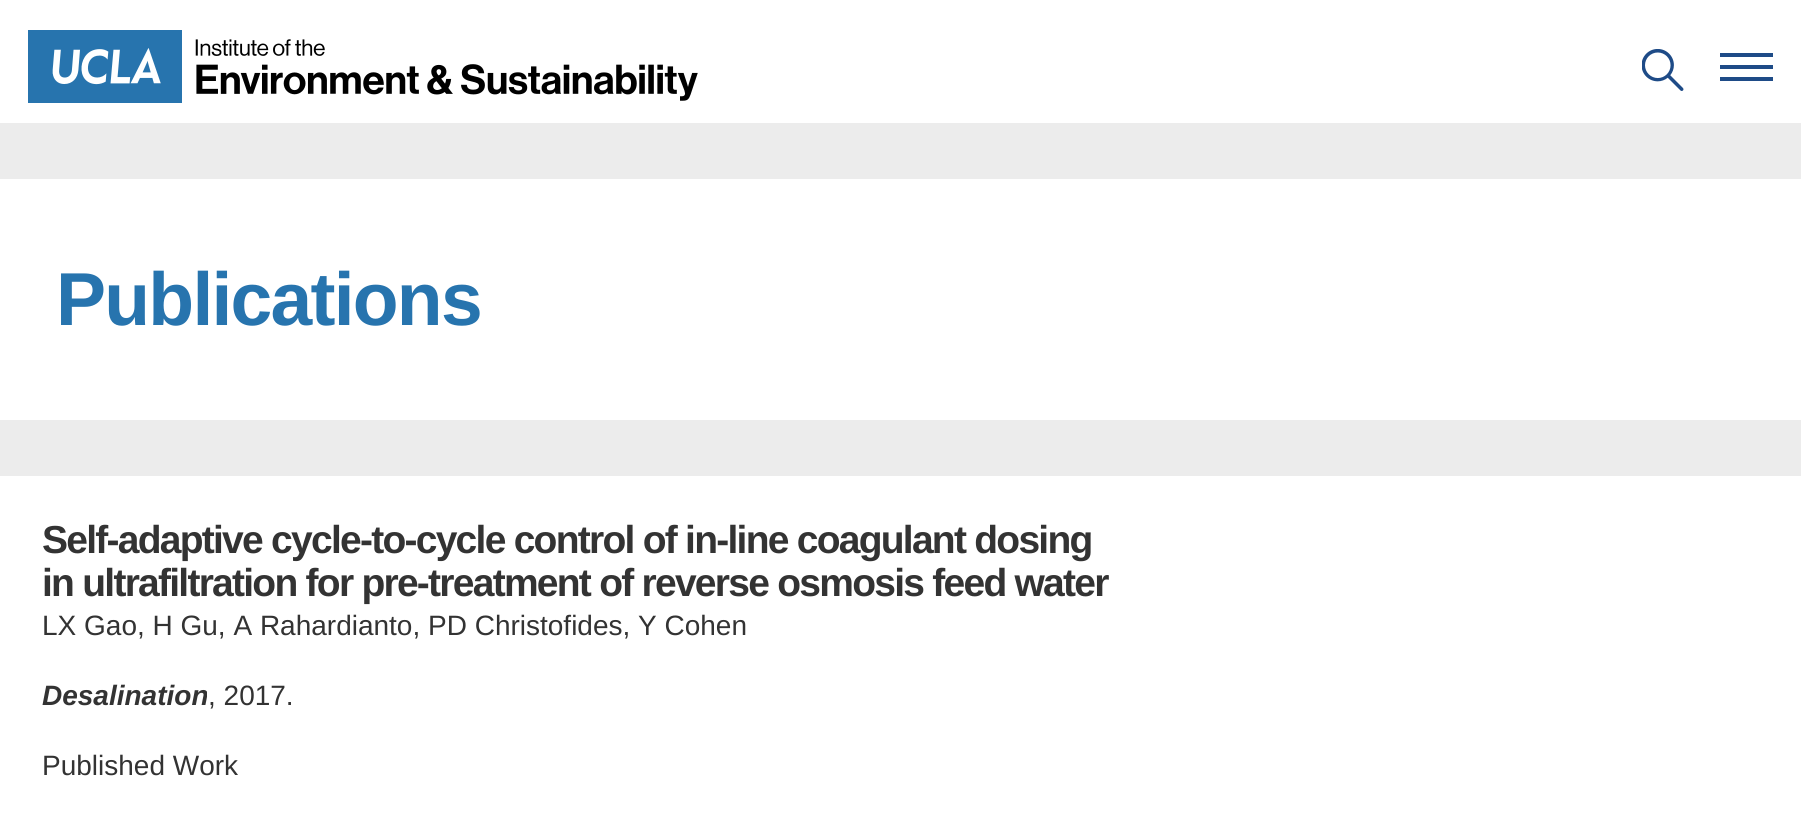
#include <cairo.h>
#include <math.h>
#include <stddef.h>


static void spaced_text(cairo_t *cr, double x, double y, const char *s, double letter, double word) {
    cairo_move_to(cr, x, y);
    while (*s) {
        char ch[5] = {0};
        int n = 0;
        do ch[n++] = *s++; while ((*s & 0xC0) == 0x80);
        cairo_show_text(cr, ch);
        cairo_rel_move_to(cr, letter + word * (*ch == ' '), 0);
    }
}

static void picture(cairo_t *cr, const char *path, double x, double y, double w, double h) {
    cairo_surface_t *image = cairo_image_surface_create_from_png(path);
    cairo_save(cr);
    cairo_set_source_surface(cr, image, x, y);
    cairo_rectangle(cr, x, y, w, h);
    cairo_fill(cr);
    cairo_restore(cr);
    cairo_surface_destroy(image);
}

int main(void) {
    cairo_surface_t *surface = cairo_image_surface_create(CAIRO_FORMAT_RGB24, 1801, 835);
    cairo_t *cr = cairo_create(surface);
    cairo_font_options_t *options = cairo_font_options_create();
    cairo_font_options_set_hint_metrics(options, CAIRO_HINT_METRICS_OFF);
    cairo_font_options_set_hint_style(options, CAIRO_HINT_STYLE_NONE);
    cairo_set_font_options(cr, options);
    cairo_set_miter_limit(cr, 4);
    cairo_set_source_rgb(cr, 0.922, 0.922, 0.922);
    cairo_paint(cr);
    cairo_set_source_rgb(cr, 1, 1, 1);
    cairo_rectangle(cr, 0, 0, 1801, 123);
    cairo_fill(cr);
    picture(cr, "img1.png", 28, 30, 670, 73);
    picture(cr, "img2.png", 1642, 49, 42, 42);
    cairo_set_source_rgb(cr, 0.118, 0.294, 0.529);
    cairo_rectangle(cr, 1720, 65, 53, 4);
    cairo_fill(cr);
    cairo_rectangle(cr, 1720, 53, 53, 4);
    cairo_fill(cr);
    cairo_rectangle(cr, 1720, 77, 53, 4);
    cairo_fill(cr);
    cairo_set_source_rgb(cr, 1, 1, 1);
    cairo_rectangle(cr, 0, 179, 1801, 241);
    cairo_fill(cr);
    cairo_select_font_face(cr, "Liberation Sans", CAIRO_FONT_SLANT_NORMAL, CAIRO_FONT_WEIGHT_BOLD);
    cairo_set_font_size(cr, 75);
    cairo_set_source_rgb(cr, 0.153, 0.455, 0.682);
    spaced_text(cr, 56, 325, "Publications", -1.75, 0);
    cairo_set_source_rgb(cr, 1, 1, 1);
    cairo_rectangle(cr, 0, 476, 1801, 359);
    cairo_fill(cr);
    cairo_set_font_size(cr, 39);
    cairo_set_source_rgb(cr, 0.2, 0.2, 0.2);
    spaced_text(cr, 42, 553, "Self-adaptive cycle-to-cycle control of in-line coagulant dosing", -1.75, 0);
    spaced_text(cr, 42, 596, "in ultrafiltration for pre-treatment of reverse osmosis feed water", -1.75, 0);
    cairo_select_font_face(cr, "Liberation Sans", CAIRO_FONT_SLANT_NORMAL, CAIRO_FONT_WEIGHT_NORMAL);
    cairo_set_font_size(cr, 28);
    cairo_move_to(cr, 42, 635);
    cairo_show_text(cr, "LX Gao, H Gu, A Rahardianto, PD Christofides, Y Cohen");
    cairo_select_font_face(cr, "Liberation Sans", CAIRO_FONT_SLANT_ITALIC, CAIRO_FONT_WEIGHT_BOLD);
    cairo_move_to(cr, 42, 705);
    cairo_show_text(cr, "Desalination");
    cairo_select_font_face(cr, "Liberation Sans", CAIRO_FONT_SLANT_NORMAL, CAIRO_FONT_WEIGHT_NORMAL);
    cairo_move_to(cr, 208, 705);
    cairo_show_text(cr, ", 2017.");
    cairo_move_to(cr, 42, 775);
    cairo_show_text(cr, "Published Work");
    cairo_surface_write_to_png(surface, "page.png");
    cairo_font_options_destroy(options);
    cairo_destroy(cr);
    cairo_surface_destroy(surface);
    return 0;
}
